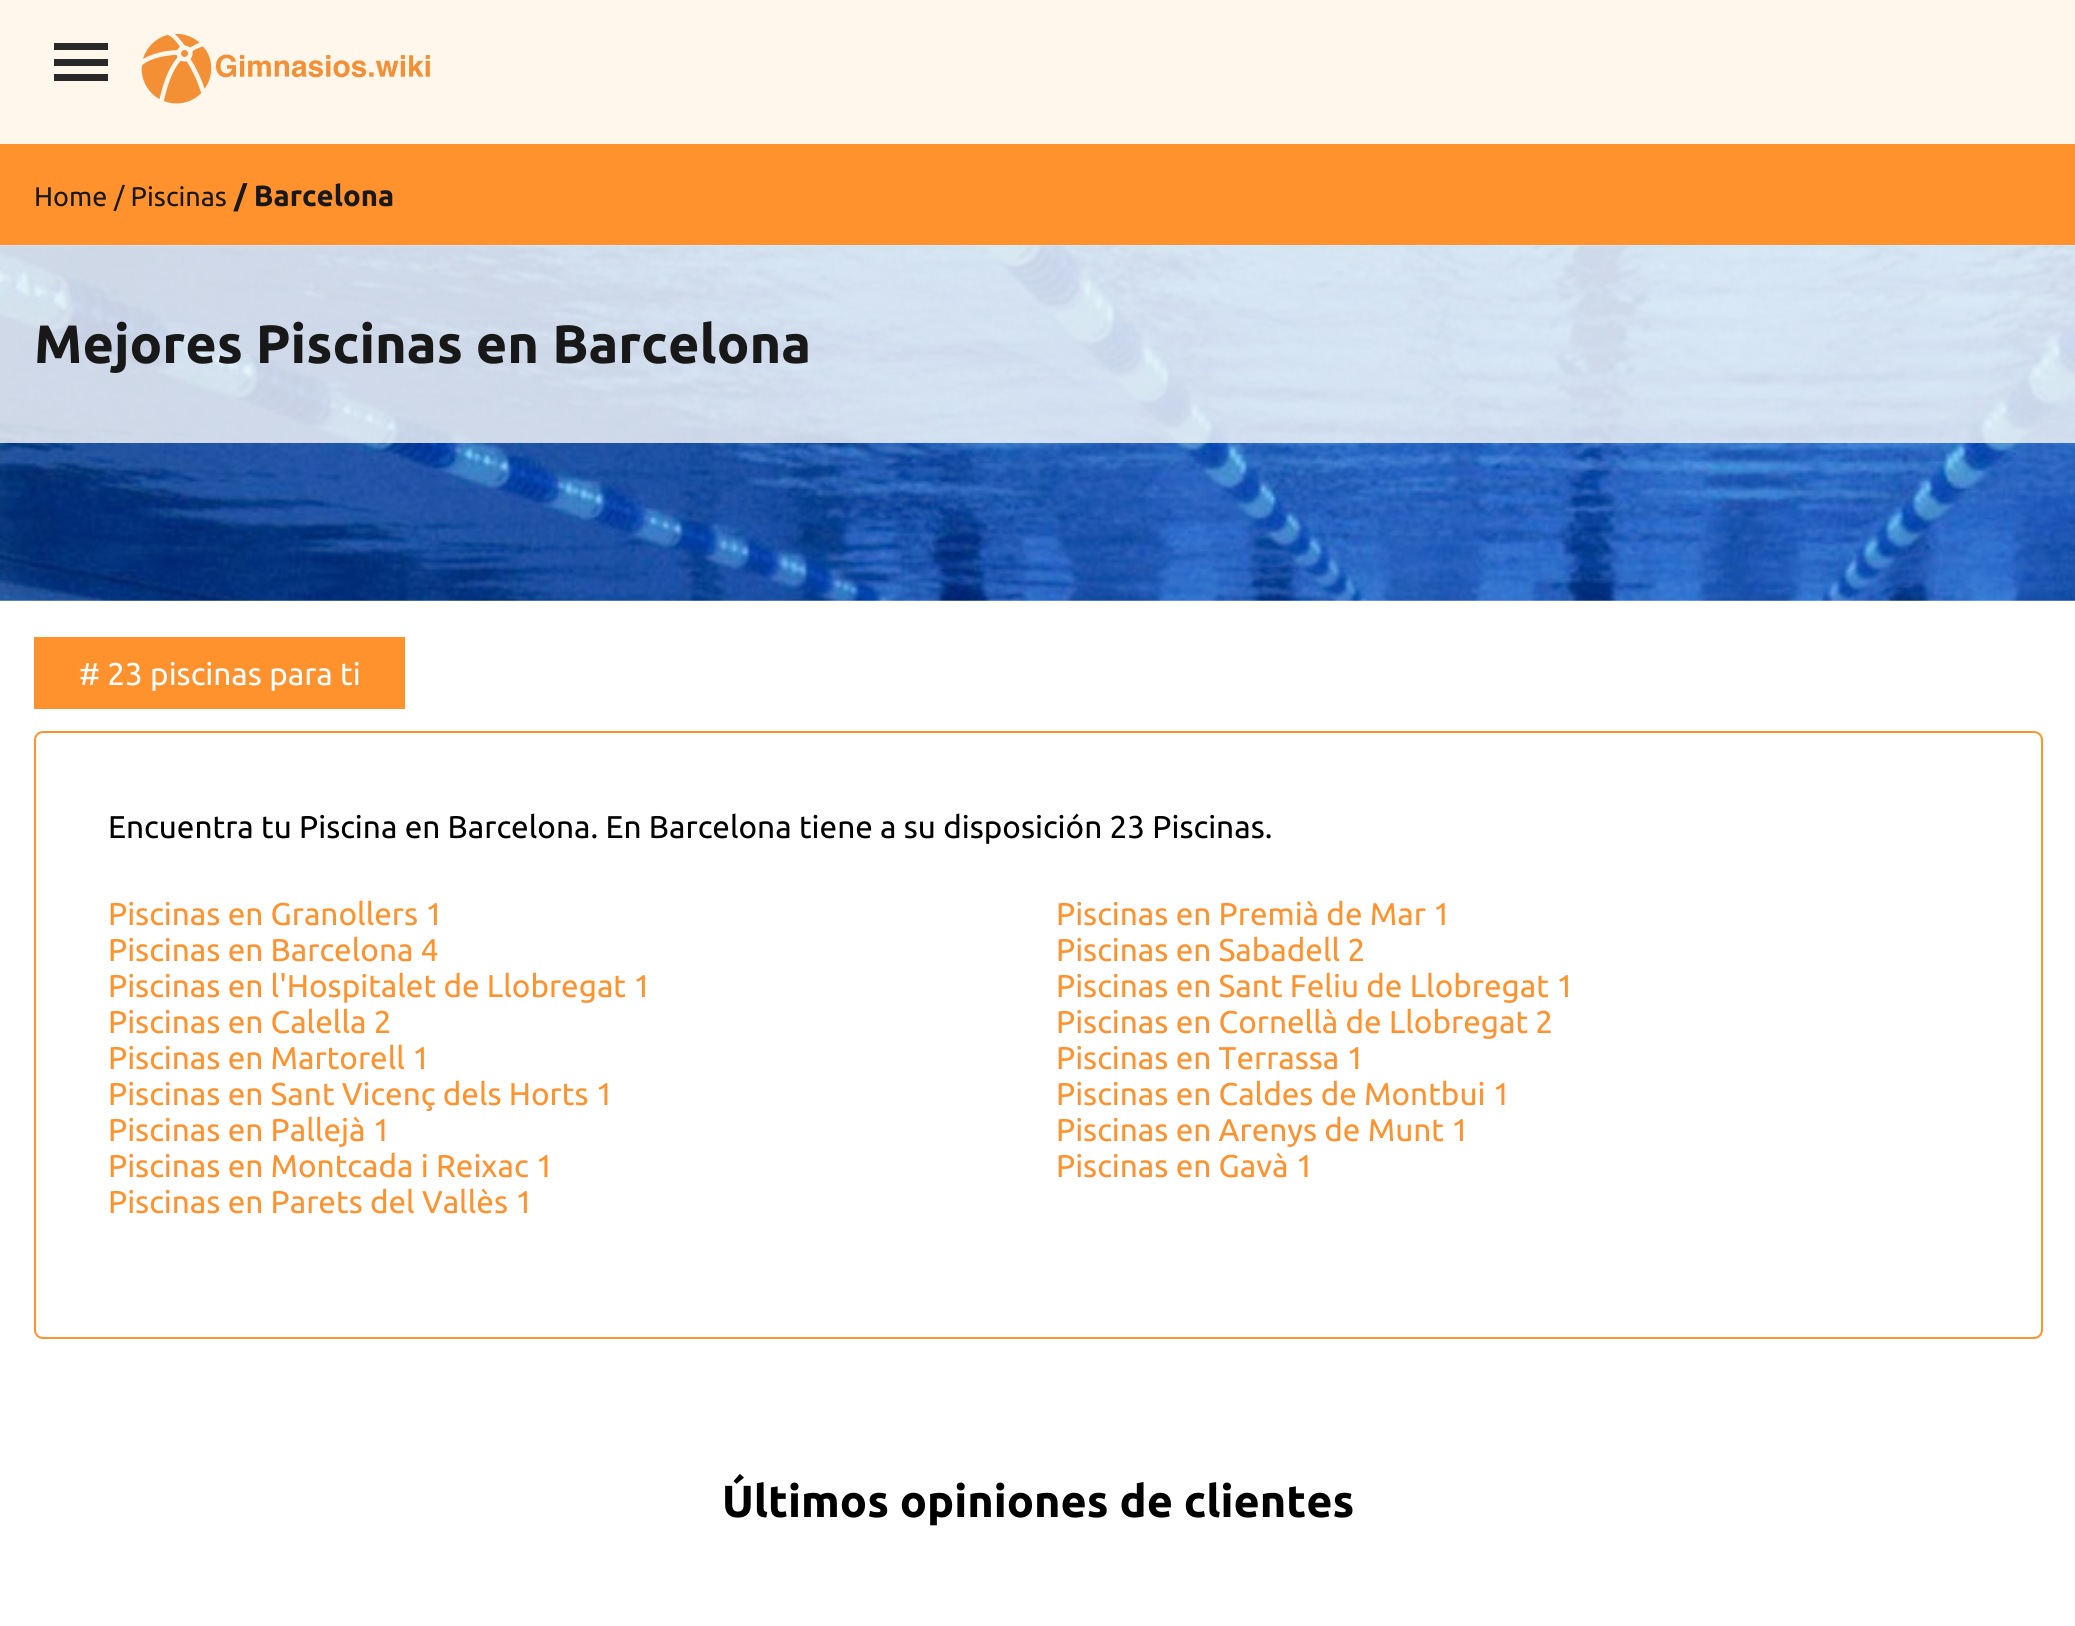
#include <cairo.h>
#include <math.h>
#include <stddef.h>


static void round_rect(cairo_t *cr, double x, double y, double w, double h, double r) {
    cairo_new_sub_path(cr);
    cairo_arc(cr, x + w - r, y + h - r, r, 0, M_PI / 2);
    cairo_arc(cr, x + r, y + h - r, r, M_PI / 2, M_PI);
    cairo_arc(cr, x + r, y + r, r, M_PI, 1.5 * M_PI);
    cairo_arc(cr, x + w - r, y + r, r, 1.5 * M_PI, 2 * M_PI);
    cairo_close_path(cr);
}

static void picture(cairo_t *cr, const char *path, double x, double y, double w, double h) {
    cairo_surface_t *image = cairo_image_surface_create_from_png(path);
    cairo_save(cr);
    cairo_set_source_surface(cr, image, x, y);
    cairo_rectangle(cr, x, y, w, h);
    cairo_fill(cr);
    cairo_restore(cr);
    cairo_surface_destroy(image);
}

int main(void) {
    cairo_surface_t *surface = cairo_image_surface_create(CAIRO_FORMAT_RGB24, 2075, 1626);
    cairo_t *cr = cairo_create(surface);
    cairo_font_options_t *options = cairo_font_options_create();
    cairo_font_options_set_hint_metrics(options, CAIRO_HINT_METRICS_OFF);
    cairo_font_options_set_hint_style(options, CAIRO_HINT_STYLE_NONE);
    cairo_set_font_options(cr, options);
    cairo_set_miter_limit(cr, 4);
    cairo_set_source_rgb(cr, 1, 1, 1);
    cairo_paint(cr);
    cairo_set_source_rgb(cr, 1, 0.961, 0.922);
    cairo_rectangle(cr, 0, 0, 2075, 144);
    cairo_fill(cr);
    cairo_set_source_rgb(cr, 0.157, 0.157, 0.157);
    cairo_rectangle(cr, 54, 43, 54, 7);
    cairo_fill(cr);
    cairo_rectangle(cr, 54, 59, 54, 7);
    cairo_fill(cr);
    cairo_rectangle(cr, 54, 74, 54, 7);
    cairo_fill(cr);
    picture(cr, "img1.png", 141, 34, 289, 70);
    cairo_set_source_rgb(cr, 1, 0.573, 0.176);
    cairo_rectangle(cr, 0, 144, 2075, 101);
    cairo_fill(cr);
    cairo_select_font_face(cr, "Ubuntu", CAIRO_FONT_SLANT_NORMAL, CAIRO_FONT_WEIGHT_NORMAL);
    cairo_set_font_size(cr, 27);
    cairo_set_source_rgb(cr, 0.094, 0.094, 0.094);
    cairo_move_to(cr, 34, 206);
    cairo_show_text(cr, "Home");
    cairo_move_to(cr, 114, 206);
    cairo_show_text(cr, "/ Piscinas");
    cairo_select_font_face(cr, "Ubuntu", CAIRO_FONT_SLANT_NORMAL, CAIRO_FONT_WEIGHT_BOLD);
    cairo_set_font_size(cr, 29.25);
    cairo_move_to(cr, 234, 206);
    cairo_show_text(cr, "/ Barcelona");
    picture(cr, "img2.png", 0, 245, 2075, 356);
    cairo_set_source_rgba(cr, 0.98, 0.98, 0.98, 0.8);
    cairo_rectangle(cr, 0, 245, 2075, 198);
    cairo_fill(cr);
    cairo_set_font_size(cr, 54);
    cairo_set_source_rgb(cr, 0.094, 0.094, 0.094);
    cairo_move_to(cr, 34, 363);
    cairo_show_text(cr, "Mejores Piscinas en Barcelona");
    cairo_set_source_rgb(cr, 1, 0.573, 0.176);
    cairo_rectangle(cr, 34, 637, 371, 72);
    cairo_fill(cr);
    cairo_select_font_face(cr, "Ubuntu", CAIRO_FONT_SLANT_NORMAL, CAIRO_FONT_WEIGHT_NORMAL);
    cairo_set_font_size(cr, 31.5);
    cairo_set_source_rgb(cr, 1, 1, 1);
    cairo_move_to(cr, 79, 685);
    cairo_show_text(cr, "# 23 piscinas para ti");
    round_rect(cr, 35, 732, 2007, 606, 8);
    cairo_set_source_rgb(cr, 1, 0.573, 0.176);
    cairo_stroke(cr);
    cairo_set_source_rgb(cr, 0, 0, 0);
    cairo_move_to(cr, 108, 838);
    cairo_show_text(cr, "Encuentra tu Piscina en Barcelona. En Barcelona tiene a su disposición 23 Piscinas.");
    cairo_set_source_rgb(cr, 1, 0.573, 0.176);
    cairo_move_to(cr, 108, 925);
    cairo_show_text(cr, "Piscinas en Granollers 1");
    cairo_move_to(cr, 1056, 925);
    cairo_show_text(cr, "Piscinas en Premià de Mar 1");
    cairo_move_to(cr, 108, 961);
    cairo_show_text(cr, "Piscinas en Barcelona 4");
    cairo_move_to(cr, 1056, 961);
    cairo_show_text(cr, "Piscinas en Sabadell 2");
    cairo_move_to(cr, 108, 997);
    cairo_show_text(cr, "Piscinas en l'Hospitalet de Llobregat 1");
    cairo_move_to(cr, 1056, 997);
    cairo_show_text(cr, "Piscinas en Sant Feliu de Llobregat 1");
    cairo_move_to(cr, 108, 1033);
    cairo_show_text(cr, "Piscinas en Calella 2");
    cairo_move_to(cr, 1056, 1033);
    cairo_show_text(cr, "Piscinas en Cornellà de Llobregat 2");
    cairo_move_to(cr, 108, 1069);
    cairo_show_text(cr, "Piscinas en Martorell 1");
    cairo_move_to(cr, 1056, 1069);
    cairo_show_text(cr, "Piscinas en Terrassa 1");
    cairo_move_to(cr, 108, 1105);
    cairo_show_text(cr, "Piscinas en Sant Vicenç dels Horts 1");
    cairo_move_to(cr, 1056, 1105);
    cairo_show_text(cr, "Piscinas en Caldes de Montbui 1");
    cairo_move_to(cr, 108, 1141);
    cairo_show_text(cr, "Piscinas en Pallejà 1");
    cairo_move_to(cr, 1056, 1141);
    cairo_show_text(cr, "Piscinas en Arenys de Munt 1");
    cairo_move_to(cr, 108, 1177);
    cairo_show_text(cr, "Piscinas en Montcada i Reixac 1");
    cairo_move_to(cr, 1056, 1177);
    cairo_show_text(cr, "Piscinas en Gavà 1");
    cairo_move_to(cr, 108, 1213);
    cairo_show_text(cr, "Piscinas en Parets del Vallès 1");
    cairo_select_font_face(cr, "Ubuntu", CAIRO_FONT_SLANT_NORMAL, CAIRO_FONT_WEIGHT_BOLD);
    cairo_set_font_size(cr, 45);
    cairo_set_source_rgb(cr, 0, 0, 0);
    cairo_move_to(cr, 722, 1517);
    cairo_show_text(cr, "Últimos opiniones de clientes");
    cairo_surface_write_to_png(surface, "page.png");
    cairo_font_options_destroy(options);
    cairo_destroy(cr);
    cairo_surface_destroy(surface);
    return 0;
}
